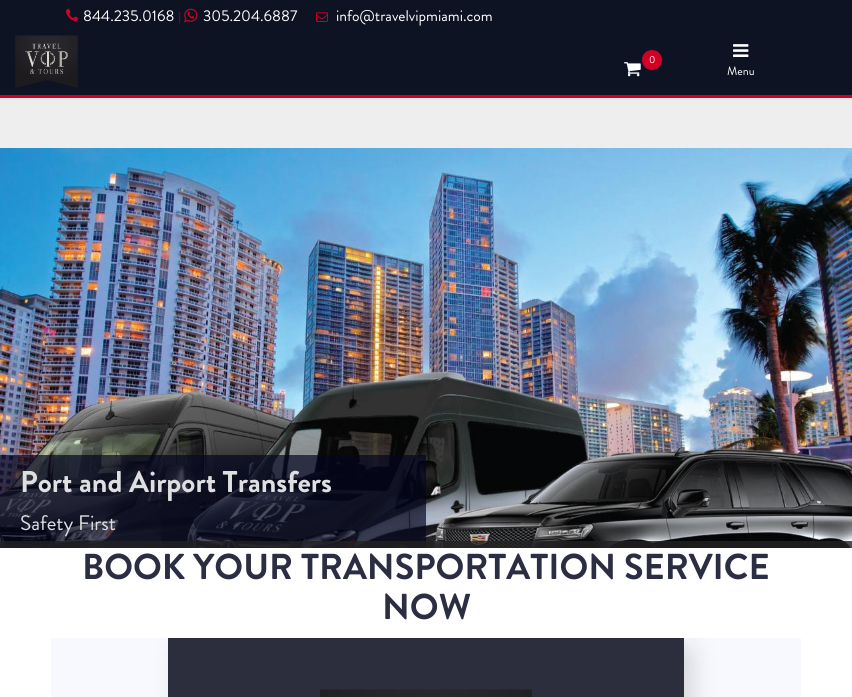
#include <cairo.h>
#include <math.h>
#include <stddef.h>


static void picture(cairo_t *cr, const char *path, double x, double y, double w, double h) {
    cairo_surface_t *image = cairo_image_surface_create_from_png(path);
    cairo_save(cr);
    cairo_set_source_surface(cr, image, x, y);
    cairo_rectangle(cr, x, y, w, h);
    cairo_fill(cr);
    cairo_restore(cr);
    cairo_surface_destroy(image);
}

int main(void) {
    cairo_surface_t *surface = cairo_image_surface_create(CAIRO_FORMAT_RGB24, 852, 697);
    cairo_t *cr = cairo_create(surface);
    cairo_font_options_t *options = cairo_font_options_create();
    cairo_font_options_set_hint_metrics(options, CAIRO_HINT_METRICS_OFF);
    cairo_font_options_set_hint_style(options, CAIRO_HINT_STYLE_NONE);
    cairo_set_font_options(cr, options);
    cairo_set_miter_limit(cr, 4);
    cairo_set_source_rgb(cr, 1, 1, 1);
    cairo_paint(cr);
    cairo_set_source_rgb(cr, 0.055, 0.075, 0.137);
    cairo_rectangle(cr, 0, 0, 852, 95);
    cairo_fill(cr);
    picture(cr, "img1.png", 15, 35, 63, 53);
    picture(cr, "img2.png", 66, 8, 13, 13);
    cairo_select_font_face(cr, "Brandon Grotesque", CAIRO_FONT_SLANT_NORMAL, CAIRO_FONT_WEIGHT_NORMAL);
    cairo_set_font_size(cr, 15.6);
    cairo_set_source_rgb(cr, 1, 1, 1);
    cairo_move_to(cr, 83, 21);
    cairo_show_text(cr, "844.235.0168");
    cairo_select_font_face(cr, "Montserrat", CAIRO_FONT_SLANT_NORMAL, CAIRO_FONT_WEIGHT_NORMAL);
    cairo_set_font_size(cr, 12);
    cairo_set_source_rgb(cr, 0.2, 0.2, 0.2);
    cairo_move_to(cr, 178, 21);
    cairo_show_text(cr, "|");
    picture(cr, "img3.png", 184, 8, 14, 15);
    cairo_select_font_face(cr, "Brandon Grotesque", CAIRO_FONT_SLANT_NORMAL, CAIRO_FONT_WEIGHT_NORMAL);
    cairo_set_font_size(cr, 15.6);
    cairo_set_source_rgb(cr, 1, 1, 1);
    cairo_move_to(cr, 203, 21);
    cairo_show_text(cr, "305.204.6887");
    picture(cr, "img4.png", 316, 12, 12, 10);
    cairo_move_to(cr, 336, 21);
    cairo_show_text(cr, "info@travelvipmiami.com");
    cairo_set_source_rgb(cr, 0.82, 0, 0.141);
    cairo_new_path(cr);
    cairo_arc(cr, 652, 60, 10, 0, 2 * M_PI);
    cairo_fill(cr);
    cairo_set_font_size(cr, 10);
    cairo_set_source_rgb(cr, 1, 1, 1);
    cairo_move_to(cr, 649, 63);
    cairo_show_text(cr, "0");
    picture(cr, "img5.png", 624, 62, 17, 15);
    picture(cr, "img6.png", 733, 44, 16, 13);
    cairo_set_font_size(cr, 12);
    cairo_move_to(cr, 727, 75);
    cairo_show_text(cr, "Menu");
    cairo_set_source_rgb(cr, 0.82, 0, 0.141);
    cairo_rectangle(cr, 0, 95, 852, 3);
    cairo_fill(cr);
    cairo_set_source_rgb(cr, 0.894, 0.906, 0.929);
    cairo_rectangle(cr, 0, 98, 852, 2);
    cairo_fill(cr);
    cairo_set_source_rgb(cr, 0.933, 0.933, 0.933);
    cairo_rectangle(cr, 0, 100, 852, 48);
    cairo_fill(cr);
    picture(cr, "img7.png", 0, 148, 852, 400);
    cairo_set_source_rgba(cr, 0.012, 0.02, 0.122, 0.69);
    cairo_rectangle(cr, 0, 455, 426, 93);
    cairo_fill(cr);
    cairo_select_font_face(cr, "Brandon Grotesque", CAIRO_FONT_SLANT_NORMAL, CAIRO_FONT_WEIGHT_BOLD);
    cairo_set_font_size(cr, 30);
    cairo_set_source_rgb(cr, 0.875, 0.875, 0.882);
    cairo_move_to(cr, 20, 492);
    cairo_show_text(cr, "Port and Airport Transfers");
    cairo_select_font_face(cr, "Brandon Grotesque", CAIRO_FONT_SLANT_NORMAL, CAIRO_FONT_WEIGHT_NORMAL);
    cairo_set_font_size(cr, 21);
    cairo_move_to(cr, 20, 530);
    cairo_show_text(cr, "Safety First");
    cairo_set_source_rgba(cr, 0.133, 0.133, 0.133, 0.8);
    cairo_rectangle(cr, 0, 541, 852, 7);
    cairo_fill(cr);
    cairo_select_font_face(cr, "Brandon Grotesque", CAIRO_FONT_SLANT_NORMAL, CAIRO_FONT_WEIGHT_BOLD);
    cairo_set_font_size(cr, 36);
    cairo_set_source_rgb(cr, 0.169, 0.176, 0.259);
    cairo_move_to(cr, 82, 579);
    cairo_show_text(cr, "BOOK YOUR TRANSPORTATION SERVICE");
    cairo_move_to(cr, 382, 619);
    cairo_show_text(cr, "NOW");
    picture(cr, "img8.png", 51, 638, 750, 59);
    cairo_surface_write_to_png(surface, "page.png");
    cairo_font_options_destroy(options);
    cairo_destroy(cr);
    cairo_surface_destroy(surface);
    return 0;
}
